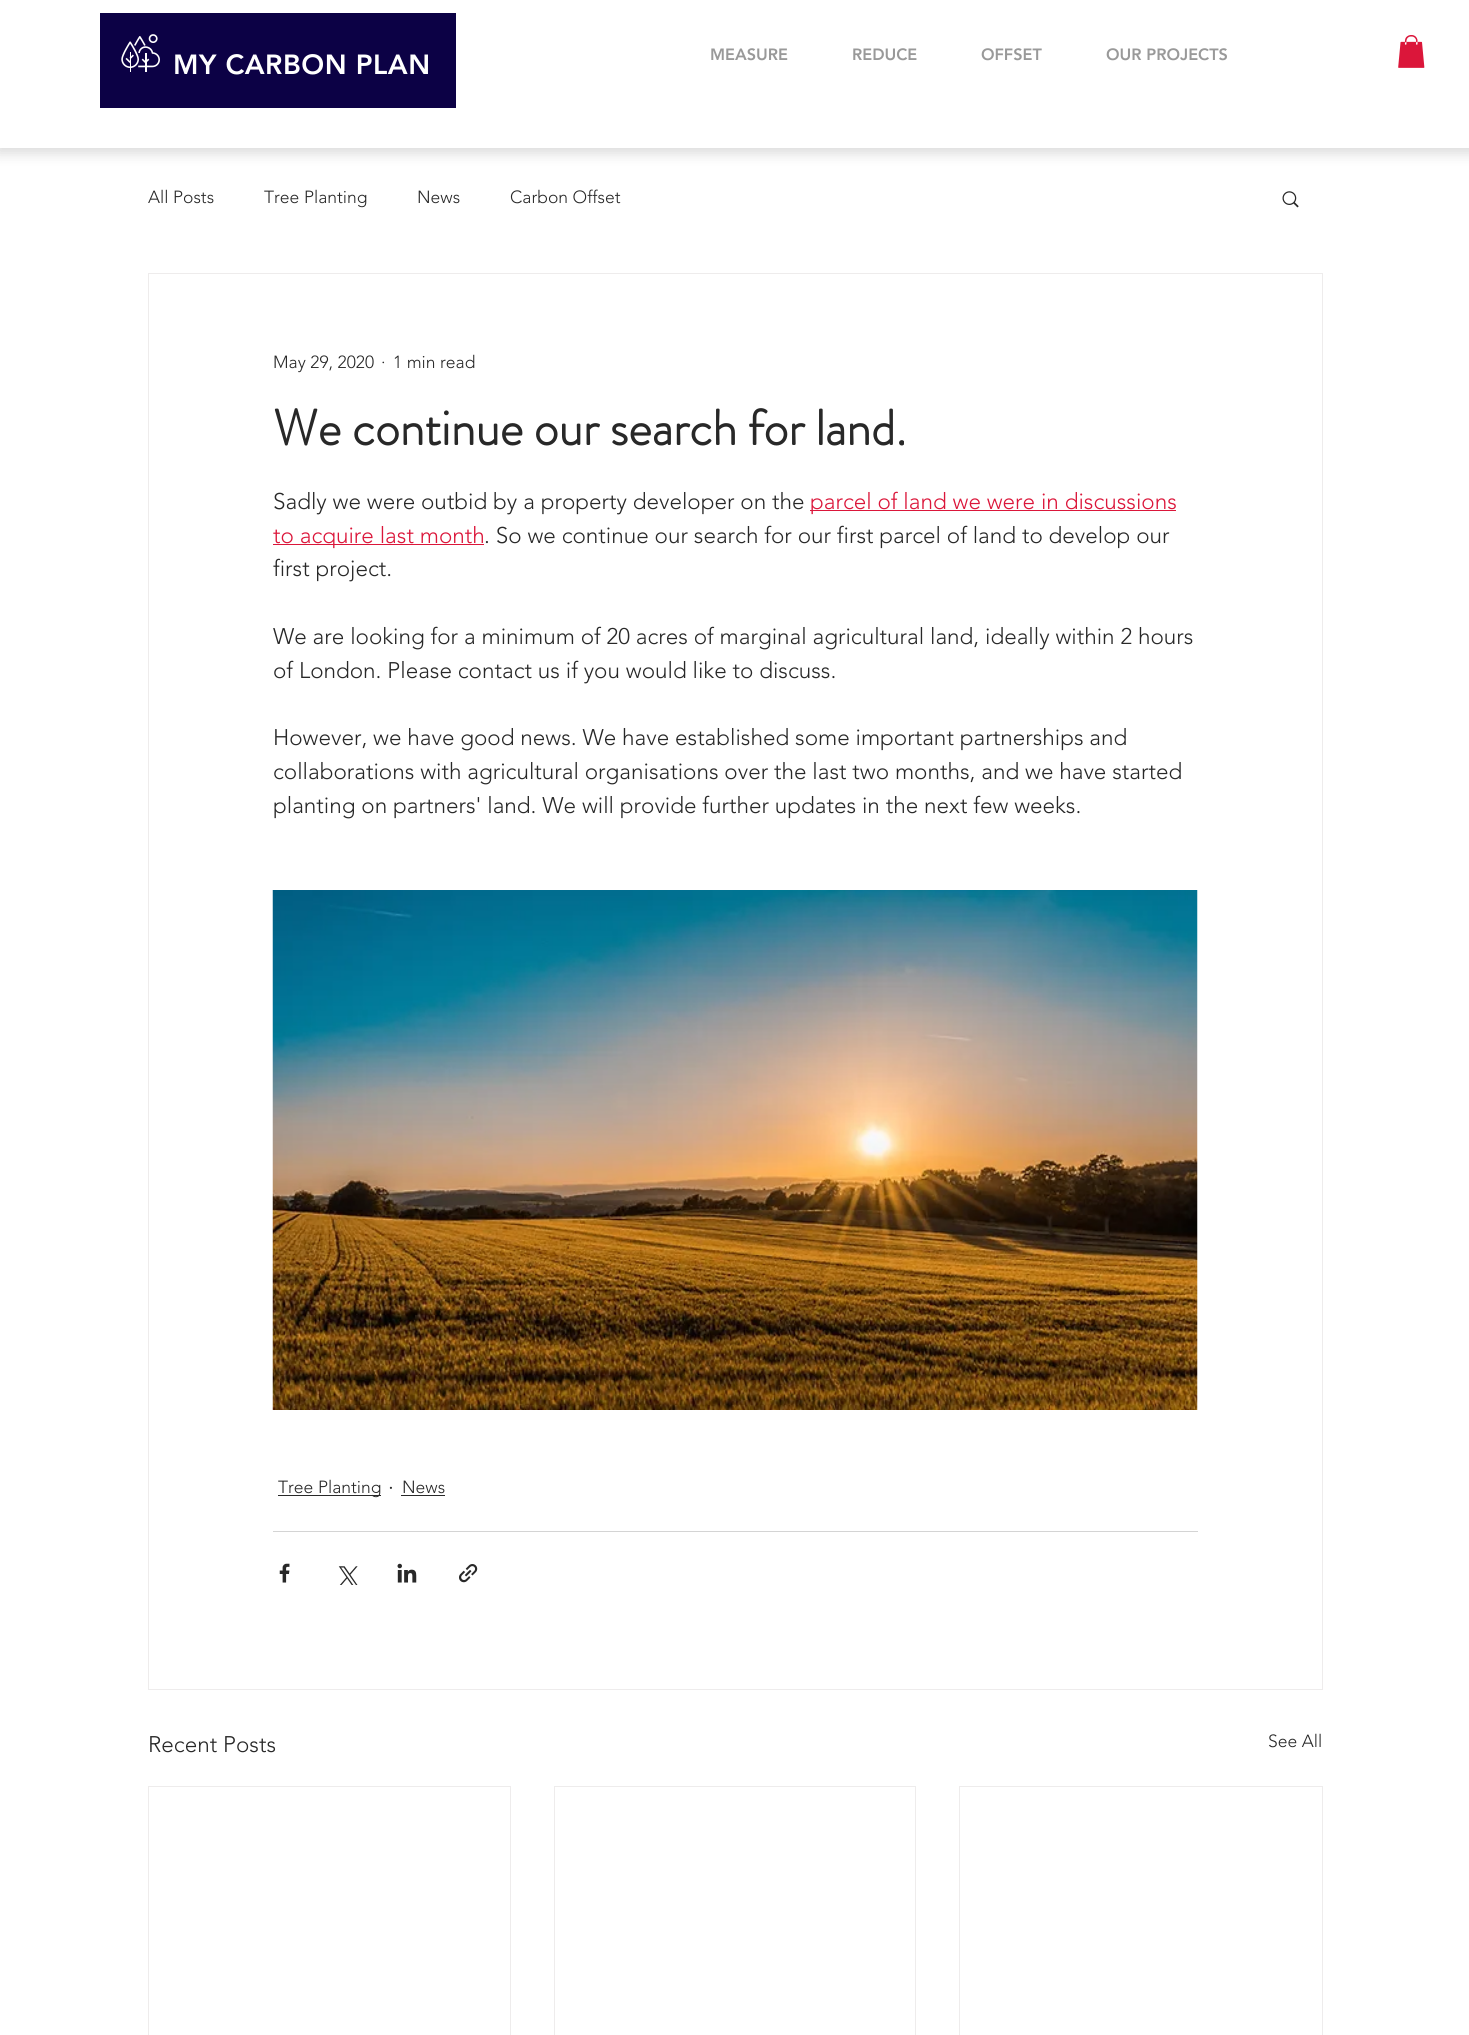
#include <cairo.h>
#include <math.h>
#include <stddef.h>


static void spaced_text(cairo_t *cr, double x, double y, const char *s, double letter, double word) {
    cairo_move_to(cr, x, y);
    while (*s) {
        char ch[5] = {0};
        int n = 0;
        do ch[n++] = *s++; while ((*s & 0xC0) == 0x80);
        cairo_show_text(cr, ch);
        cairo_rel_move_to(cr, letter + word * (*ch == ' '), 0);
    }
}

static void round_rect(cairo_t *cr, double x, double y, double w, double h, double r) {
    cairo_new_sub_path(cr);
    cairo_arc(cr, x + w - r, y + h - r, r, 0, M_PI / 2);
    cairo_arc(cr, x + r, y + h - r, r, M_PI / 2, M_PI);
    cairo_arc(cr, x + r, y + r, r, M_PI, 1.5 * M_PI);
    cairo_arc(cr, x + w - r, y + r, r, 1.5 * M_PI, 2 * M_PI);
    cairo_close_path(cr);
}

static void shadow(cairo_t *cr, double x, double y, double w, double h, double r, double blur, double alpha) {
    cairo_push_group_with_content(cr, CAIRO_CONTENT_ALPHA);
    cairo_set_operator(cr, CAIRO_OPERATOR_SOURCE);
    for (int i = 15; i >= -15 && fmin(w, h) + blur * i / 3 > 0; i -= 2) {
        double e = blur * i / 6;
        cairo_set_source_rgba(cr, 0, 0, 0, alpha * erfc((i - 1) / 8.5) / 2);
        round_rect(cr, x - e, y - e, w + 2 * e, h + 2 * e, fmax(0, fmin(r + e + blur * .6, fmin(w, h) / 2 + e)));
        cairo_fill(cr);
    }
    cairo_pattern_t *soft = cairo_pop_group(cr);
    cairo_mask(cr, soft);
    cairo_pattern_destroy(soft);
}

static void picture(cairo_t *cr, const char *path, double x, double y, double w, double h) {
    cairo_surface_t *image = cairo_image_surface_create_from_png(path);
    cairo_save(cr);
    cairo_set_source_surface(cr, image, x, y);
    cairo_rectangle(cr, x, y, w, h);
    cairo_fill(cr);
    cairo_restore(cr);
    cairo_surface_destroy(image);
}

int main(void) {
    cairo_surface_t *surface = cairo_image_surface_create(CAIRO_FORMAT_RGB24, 1469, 2035);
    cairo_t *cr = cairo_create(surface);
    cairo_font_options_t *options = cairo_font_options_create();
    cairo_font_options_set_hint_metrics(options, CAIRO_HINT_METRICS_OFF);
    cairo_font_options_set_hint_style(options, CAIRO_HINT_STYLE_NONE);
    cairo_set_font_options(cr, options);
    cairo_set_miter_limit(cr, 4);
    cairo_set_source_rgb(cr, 1, 1, 1);
    cairo_paint(cr);
    cairo_set_source_rgb(cr, 0, 0, 0);
    shadow(cr, -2, 0, 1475, 153, 0, 7, 0.15);
    cairo_set_source_rgb(cr, 1, 1, 1);
    cairo_rectangle(cr, 0, 0, 1469, 148);
    cairo_fill(cr);
    cairo_set_source_rgb(cr, 0.047, 0.004, 0.271);
    cairo_rectangle(cr, 100, 13, 356, 95);
    cairo_fill(cr);
    picture(cr, "img1.png", 121, 34, 39, 38);
    cairo_select_font_face(cr, "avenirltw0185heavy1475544 Black", CAIRO_FONT_SLANT_NORMAL, CAIRO_FONT_WEIGHT_NORMAL);
    cairo_set_font_size(cr, 27.5);
    cairo_set_source_rgb(cr, 1, 1, 1);
    spaced_text(cr, 173, 74, "MY CARBON PLAN", 0.5, 0);
    cairo_set_font_size(cr, 16.25);
    cairo_set_source_rgb(cr, 0.6, 0.6, 0.6);
    cairo_move_to(cr, 710, 60);
    cairo_show_text(cr, "MEASURE");
    cairo_move_to(cr, 852, 60);
    cairo_show_text(cr, "REDUCE");
    cairo_move_to(cr, 981, 60);
    cairo_show_text(cr, "OFFSET");
    cairo_move_to(cr, 1106, 60);
    cairo_show_text(cr, "OUR PROJECTS");
    picture(cr, "img2.png", 1398, 35, 27, 33);
    cairo_select_font_face(cr, "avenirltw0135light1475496 Light", CAIRO_FONT_SLANT_NORMAL, CAIRO_FONT_WEIGHT_NORMAL);
    cairo_set_font_size(cr, 17.5);
    cairo_set_source_rgb(cr, 0.157, 0.157, 0.157);
    cairo_move_to(cr, 148, 203);
    cairo_show_text(cr, "All Posts");
    cairo_move_to(cr, 264, 203);
    cairo_show_text(cr, "Tree Planting");
    cairo_move_to(cr, 417, 203);
    cairo_show_text(cr, "News");
    cairo_move_to(cr, 510, 203);
    cairo_show_text(cr, "Carbon Offset");
    picture(cr, "img3.png", 1282, 191, 17, 17);
    cairo_rectangle(cr, 148.5, 273.5, 1174, 1416);
    cairo_set_source_rgb(cr, 0.933, 0.925, 0.925);
    cairo_set_line_width(cr, 1);
    cairo_stroke(cr);
    cairo_set_source_rgb(cr, 0.157, 0.157, 0.157);
    cairo_move_to(cr, 273, 368);
    cairo_show_text(cr, "May 29, 2020");
    cairo_move_to(cr, 381, 368);
    cairo_show_text(cr, "·");
    cairo_move_to(cr, 393, 368);
    cairo_show_text(cr, "1 min read");
    cairo_select_font_face(cr, "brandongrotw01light", CAIRO_FONT_SLANT_NORMAL, CAIRO_FONT_WEIGHT_BOLD);
    cairo_set_font_size(cr, 50);
    cairo_move_to(cr, 273, 445);
    cairo_show_text(cr, "We continue our search for land.");
    cairo_select_font_face(cr, "avenirltw0135light1475496 Light", CAIRO_FONT_SLANT_NORMAL, CAIRO_FONT_WEIGHT_NORMAL);
    cairo_set_font_size(cr, 22.5);
    cairo_move_to(cr, 273, 509);
    cairo_show_text(cr, "Sadly we were outbid by a property developer on the");
    cairo_set_source_rgb(cr, 0.859, 0.086, 0.227);
    cairo_rectangle(cr, 810, 510, 366, 1);
    cairo_fill(cr);
    cairo_move_to(cr, 810, 509);
    cairo_show_text(cr, "parcel of land we were in discussions");
    cairo_rectangle(cr, 273, 544, 211, 1);
    cairo_fill(cr);
    cairo_move_to(cr, 273, 543);
    cairo_show_text(cr, "to acquire last month");
    cairo_set_source_rgb(cr, 0.157, 0.157, 0.157);
    cairo_move_to(cr, 484, 543);
    cairo_show_text(cr, ". So we continue our search for our first parcel of land to develop our");
    cairo_move_to(cr, 273, 576);
    cairo_show_text(cr, "first project.");
    cairo_move_to(cr, 273, 644);
    cairo_show_text(cr, "We are looking for a minimum of 20 acres of marginal agricultural land, ideally within 2 hours");
    cairo_move_to(cr, 273, 678);
    cairo_show_text(cr, "of London. Please contact us if you would like to discuss.");
    cairo_move_to(cr, 273, 745);
    cairo_show_text(cr, "However, we have good news. We have established some important partnerships and");
    cairo_move_to(cr, 273, 779);
    cairo_show_text(cr, "collaborations with agricultural organisations over the last two months, and we have started");
    cairo_move_to(cr, 273, 813);
    cairo_show_text(cr, "planting on partners' land. We will provide further updates in the next few weeks.");
    picture(cr, "img4.png", 272, 890, 926, 520);
    cairo_rectangle(cr, 278, 1495, 103, 1);
    cairo_fill(cr);
    cairo_set_font_size(cr, 17.5);
    cairo_move_to(cr, 278, 1493);
    cairo_show_text(cr, "Tree Planting");
    cairo_set_font_size(cr, 22.5);
    cairo_move_to(cr, 388, 1495);
    cairo_show_text(cr, "·");
    cairo_set_font_size(cr, 17.5);
    cairo_move_to(cr, 402, 1493);
    cairo_show_text(cr, "News");
    cairo_rectangle(cr, 401, 1495, 44, 1);
    cairo_fill(cr);
    cairo_set_source_rgb(cr, 0.831, 0.831, 0.831);
    cairo_rectangle(cr, 273, 1531, 925, 1);
    cairo_fill(cr);
    picture(cr, "img5.png", 279, 1563, 11, 20);
    picture(cr, "img6.png", 338, 1566, 20, 19);
    picture(cr, "img7.png", 397, 1563, 20, 20);
    picture(cr, "img8.png", 459, 1564, 19, 19);
    cairo_set_font_size(cr, 22.5);
    cairo_set_source_rgb(cr, 0.157, 0.157, 0.157);
    cairo_move_to(cr, 148, 1752);
    cairo_show_text(cr, "Recent Posts");
    cairo_set_font_size(cr, 17.5);
    cairo_move_to(cr, 1268, 1747);
    cairo_show_text(cr, "See All");
    cairo_rectangle(cr, 148.5, 1786.5, 362, 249);
    cairo_set_source_rgb(cr, 0.933, 0.925, 0.925);
    cairo_stroke(cr);
    cairo_rectangle(cr, 554.5, 1786.5, 361, 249);
    cairo_stroke(cr);
    cairo_rectangle(cr, 959.5, 1786.5, 363, 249);
    cairo_stroke(cr);
    cairo_surface_write_to_png(surface, "page.png");
    cairo_font_options_destroy(options);
    cairo_destroy(cr);
    cairo_surface_destroy(surface);
    return 0;
}
